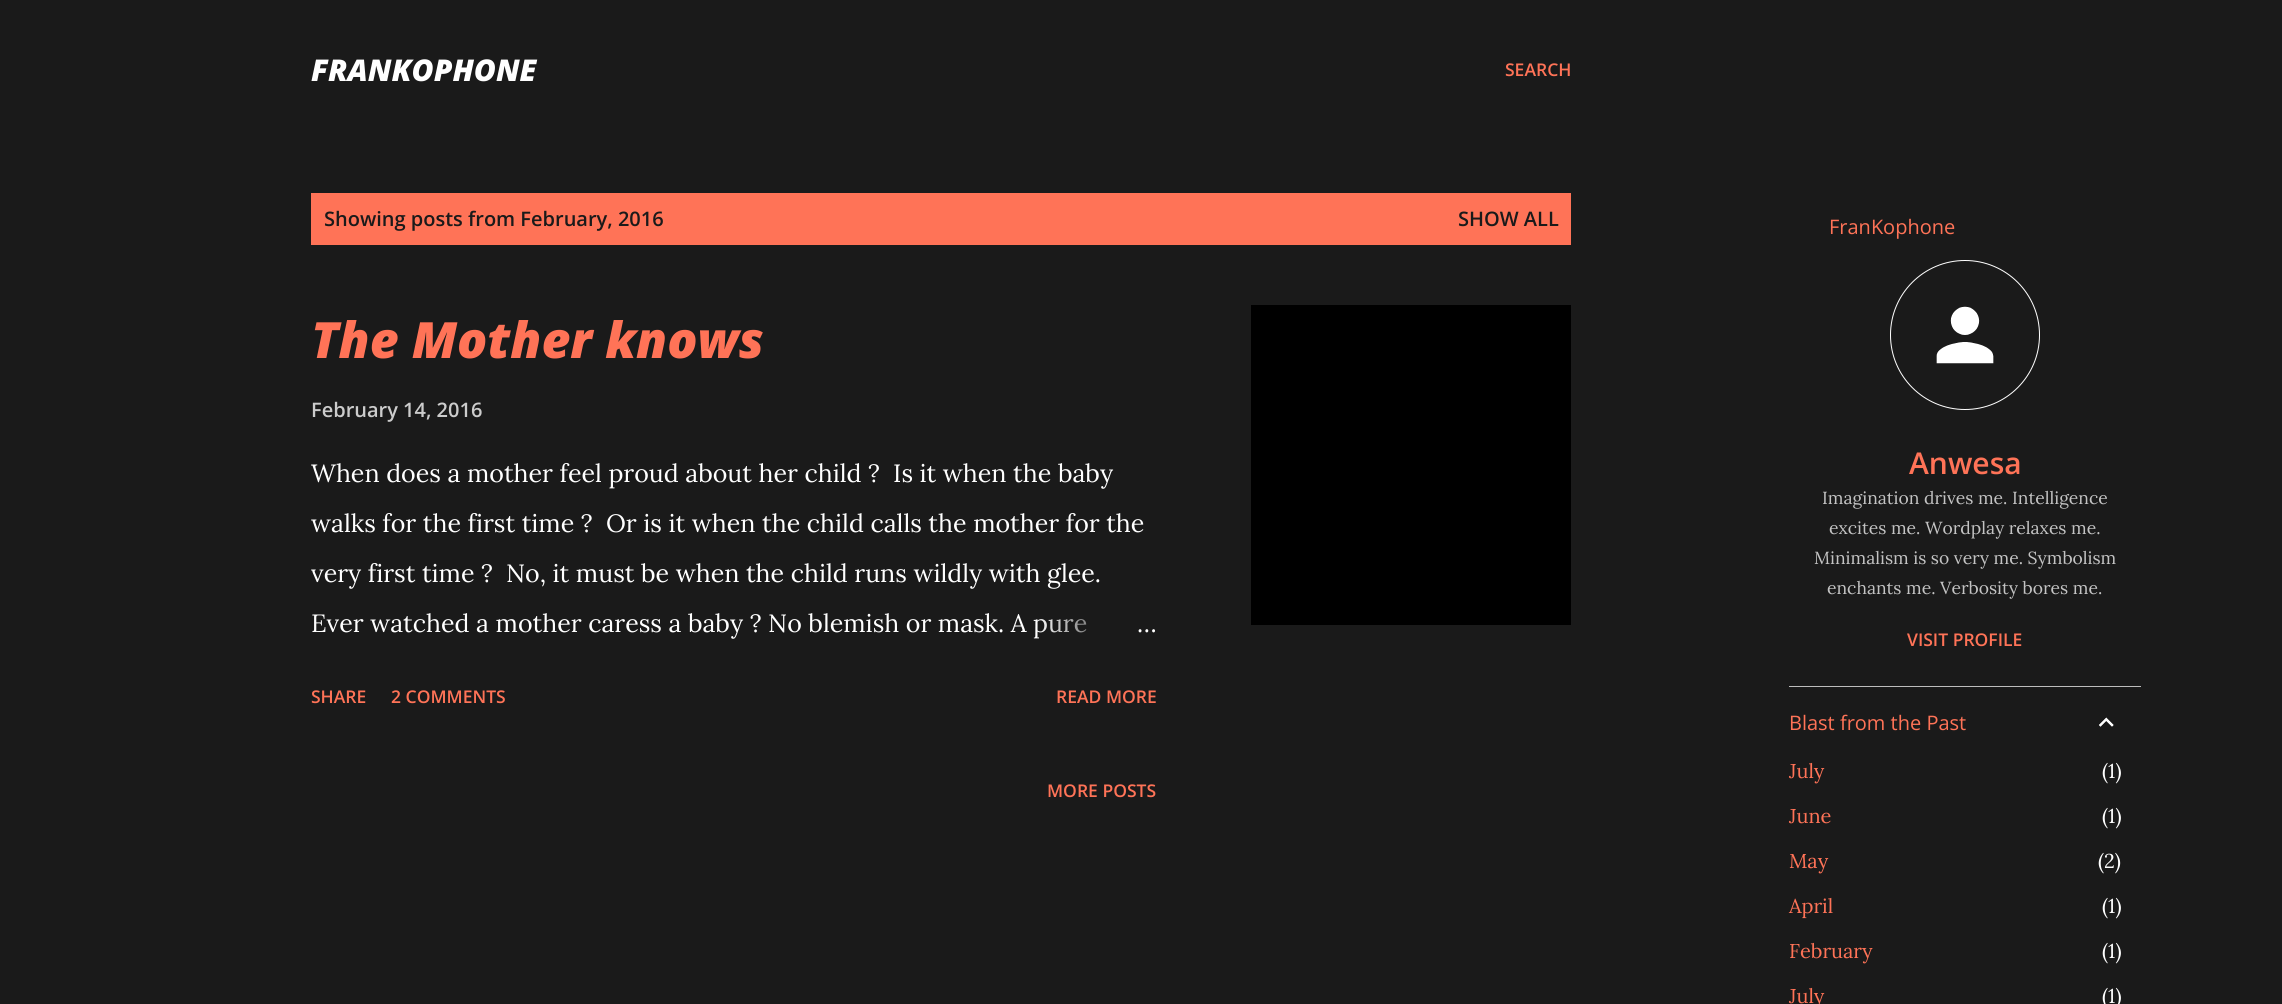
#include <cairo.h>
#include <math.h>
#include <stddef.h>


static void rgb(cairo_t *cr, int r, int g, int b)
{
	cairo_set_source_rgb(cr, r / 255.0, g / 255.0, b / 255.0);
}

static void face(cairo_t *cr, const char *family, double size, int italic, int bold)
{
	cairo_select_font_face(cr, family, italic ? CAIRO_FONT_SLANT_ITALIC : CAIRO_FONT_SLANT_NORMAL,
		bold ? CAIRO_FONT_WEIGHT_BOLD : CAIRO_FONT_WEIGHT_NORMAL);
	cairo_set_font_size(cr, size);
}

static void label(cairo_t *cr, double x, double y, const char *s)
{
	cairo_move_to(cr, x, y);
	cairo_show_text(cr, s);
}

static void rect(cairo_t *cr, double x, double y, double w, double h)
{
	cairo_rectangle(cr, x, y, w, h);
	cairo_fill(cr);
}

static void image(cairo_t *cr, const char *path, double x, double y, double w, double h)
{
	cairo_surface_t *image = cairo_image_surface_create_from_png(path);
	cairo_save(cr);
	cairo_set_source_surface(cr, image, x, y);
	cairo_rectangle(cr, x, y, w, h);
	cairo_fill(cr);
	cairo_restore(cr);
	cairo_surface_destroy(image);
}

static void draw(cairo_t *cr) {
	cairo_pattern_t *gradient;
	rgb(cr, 26, 26, 26);
	cairo_paint(cr);
	face(cr, "Open Sans ExtraBold", 30, 1, 0);
	rgb(cr, 255, 255, 255);
	label(cr, 311, 81, "FRANKOPHONE");
	face(cr, "Open Sans SemiBold", 17.5, 0, 0);
	rgb(cr, 255, 115, 87);
	label(cr, 1505, 76, "SEARCH");
	rect(cr, 311, 193, 1260, 52);
	face(cr, "Open Sans SemiBold", 20, 0, 0);
	rgb(cr, 26, 26, 26);
	label(cr, 324, 226, "Showing posts from February, 2016");
	label(cr, 1458, 226, "SHOW ALL");
	face(cr, "Open Sans ExtraBold", 50, 1, 0);
	rgb(cr, 255, 115, 87);
	label(cr, 311, 358, "The Mother knows");
	face(cr, "Open Sans SemiBold", 20, 0, 0);
	rgb(cr, 204, 204, 204);
	label(cr, 311, 417, "February 14, 2016");
	face(cr, "Lora", 25, 0, 0);
	rgb(cr, 255, 255, 255);
	label(cr, 311, 482, "When does a mother feel proud about her child ?");
	label(cr, 893, 482, "Is it when the baby");
	label(cr, 311, 532, "walks for the first time ?");
	label(cr, 606, 532, "Or is it when the child calls the mother for the");
	label(cr, 311, 582, "very first time ?");
	label(cr, 506, 582, "No, it must be when the child runs wildly with glee.");
	label(cr, 311, 632, "Ever watched a mother caress a baby ? No blemish or mask. A pure");
	gradient = cairo_pattern_create_linear(1156, 623, 1036, 623);
	cairo_pattern_add_color_stop_rgba(gradient, 0, 0.102, 0.102, 0.102, 1);
	cairo_pattern_add_color_stop_rgba(gradient, 0.2, 0.102, 0.102, 0.102, 1);
	cairo_pattern_add_color_stop_rgba(gradient, 1, 0.102, 0.102, 0.102, 0);
	cairo_set_source(cr, gradient);
	cairo_pattern_destroy(gradient);
	rect(cr, 1038, 619, 49, 19);
	rgb(cr, 255, 255, 255);
	label(cr, 1137, 632, "…");
	face(cr, "Open Sans SemiBold", 17.5, 0, 0);
	rgb(cr, 255, 115, 87);
	label(cr, 311, 703, "SHARE");
	label(cr, 391, 703, "2 COMMENTS");
	label(cr, 1056, 703, "READ MORE");
	rgb(cr, 0, 0, 0);
	rect(cr, 1251, 305, 320, 320);
	rgb(cr, 255, 115, 87);
	label(cr, 1047, 797, "MORE POSTS");
	face(cr, "Open Sans", 20, 0, 0);
	label(cr, 1829, 234, "FranKophone");
	cairo_new_path(cr);
	cairo_arc(cr, 1965, 335, 74.5, 0, 2 * M_PI);
	rgb(cr, 255, 255, 255);
	cairo_set_line_width(cr, 1);
	cairo_stroke(cr);
	image(cr, "image0.png", 1936, 306, 58, 58);
	face(cr, "Open Sans SemiBold", 30, 0, 0);
	rgb(cr, 255, 115, 87);
	label(cr, 1909, 474, "Anwesa");
	face(cr, "Lora", 17.5, 0, 0);
	rgb(cr, 195, 195, 195);
	label(cr, 1822, 504, "Imagination drives me. Intelligence");
	label(cr, 1829, 534, "excites me. Wordplay relaxes me.");
	label(cr, 1814, 564, "Minimalism is so very me. Symbolism");
	label(cr, 1827, 594, "enchants me. Verbosity bores me.");
	face(cr, "Open Sans SemiBold", 17.5, 0, 0);
	rgb(cr, 255, 115, 87);
	label(cr, 1907, 646, "VISIT PROFILE");
	rgb(cr, 189, 189, 189);
	rect(cr, 1789, 686, 352, 1);
	face(cr, "Open Sans", 20, 0, 0);
	rgb(cr, 255, 115, 87);
	label(cr, 1789, 730, "Blast from the Past");
	image(cr, "image1.png", 2099, 717, 15, 10);
	face(cr, "Lora", 20, 0, 0);
	label(cr, 1789, 778, "July");
	rgb(cr, 255, 255, 255);
	label(cr, 2102, 778, "(1)");
	rgb(cr, 255, 115, 87);
	label(cr, 1789, 823, "June");
	rgb(cr, 255, 255, 255);
	label(cr, 2102, 823, "(1)");
	rgb(cr, 255, 115, 87);
	label(cr, 1789, 868, "May");
	rgb(cr, 255, 255, 255);
	label(cr, 2098, 868, "(2)");
	rgb(cr, 255, 115, 87);
	label(cr, 1789, 913, "April");
	rgb(cr, 255, 255, 255);
	label(cr, 2102, 913, "(1)");
	rgb(cr, 255, 115, 87);
	label(cr, 1789, 958, "February");
	rgb(cr, 255, 255, 255);
	label(cr, 2102, 958, "(1)");
	rgb(cr, 255, 115, 87);
	label(cr, 1789, 1003, "July");
	rgb(cr, 255, 255, 255);
	label(cr, 2102, 1003, "(1)");
}

int main(void) {
	cairo_surface_t *surface = cairo_image_surface_create(CAIRO_FORMAT_RGB24, 2282, 1004);
	cairo_t *cr = cairo_create(surface);
	cairo_font_options_t *options = cairo_font_options_create();
	cairo_font_options_set_hint_metrics(options, CAIRO_HINT_METRICS_OFF);
	cairo_font_options_set_hint_style(options, CAIRO_HINT_STYLE_NONE);
	cairo_set_font_options(cr, options);
	cairo_set_miter_limit(cr, 4);
	draw(cr);
	cairo_surface_write_to_png(surface, "render.png");
	cairo_font_options_destroy(options);
	cairo_destroy(cr);
	cairo_surface_destroy(surface);
	return 0;
}
